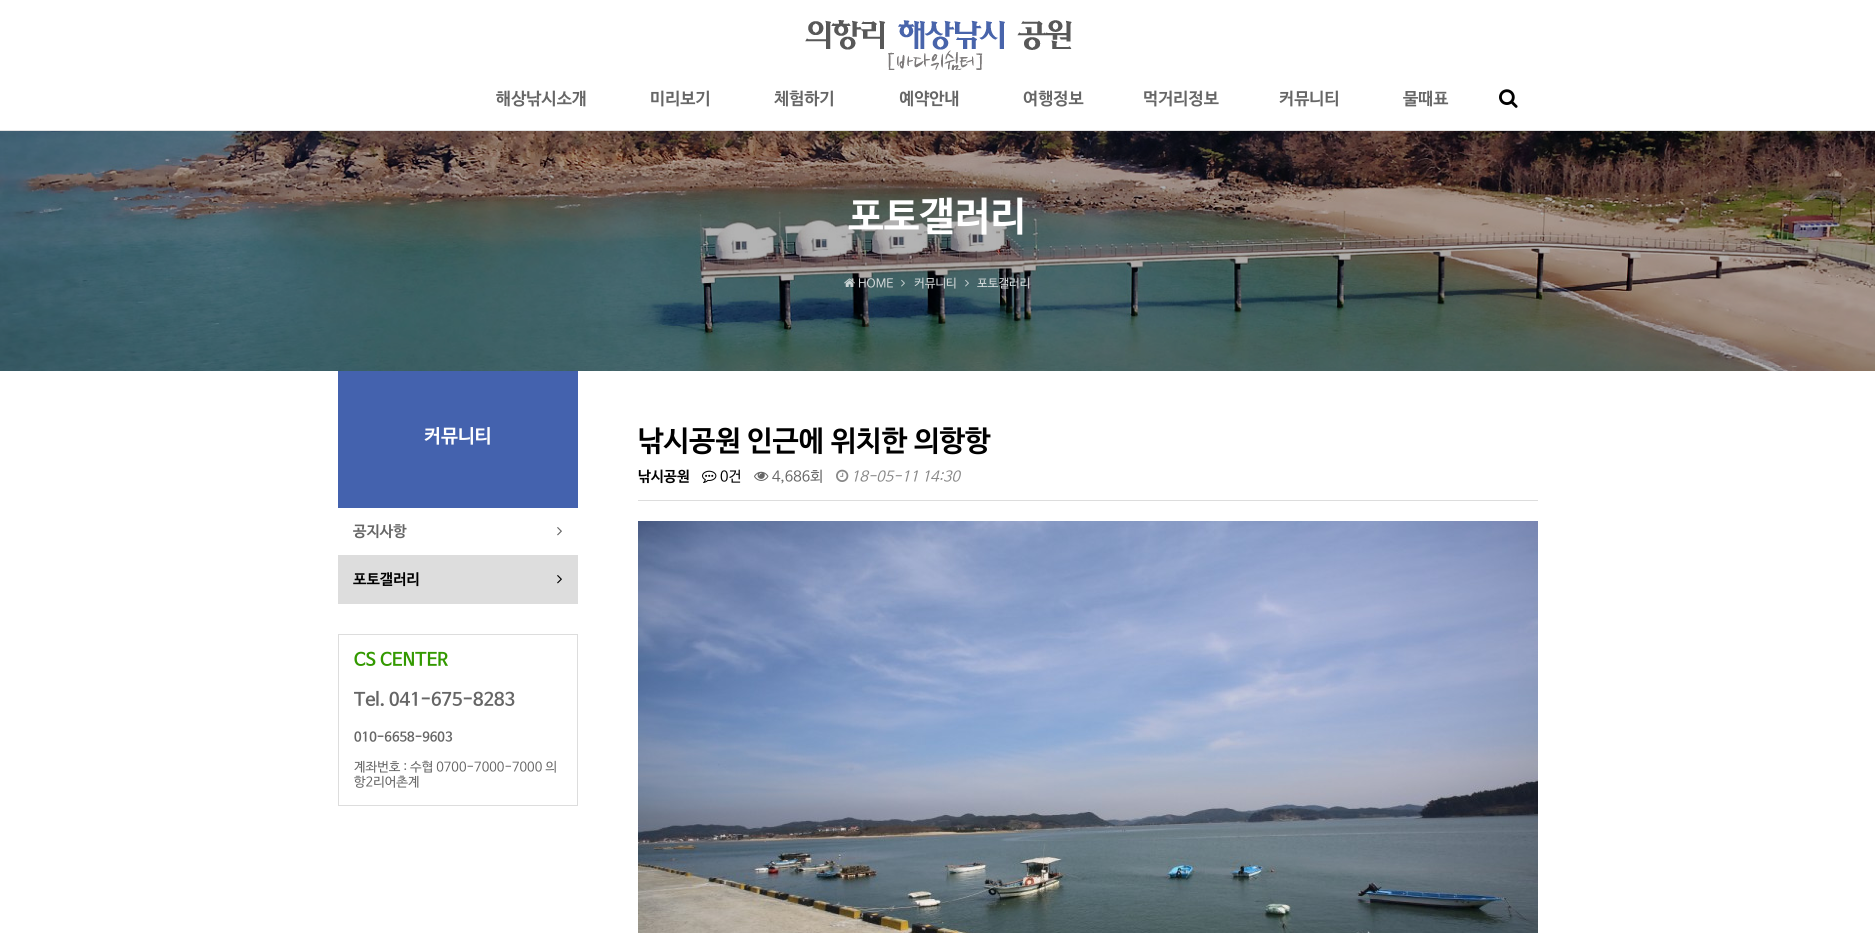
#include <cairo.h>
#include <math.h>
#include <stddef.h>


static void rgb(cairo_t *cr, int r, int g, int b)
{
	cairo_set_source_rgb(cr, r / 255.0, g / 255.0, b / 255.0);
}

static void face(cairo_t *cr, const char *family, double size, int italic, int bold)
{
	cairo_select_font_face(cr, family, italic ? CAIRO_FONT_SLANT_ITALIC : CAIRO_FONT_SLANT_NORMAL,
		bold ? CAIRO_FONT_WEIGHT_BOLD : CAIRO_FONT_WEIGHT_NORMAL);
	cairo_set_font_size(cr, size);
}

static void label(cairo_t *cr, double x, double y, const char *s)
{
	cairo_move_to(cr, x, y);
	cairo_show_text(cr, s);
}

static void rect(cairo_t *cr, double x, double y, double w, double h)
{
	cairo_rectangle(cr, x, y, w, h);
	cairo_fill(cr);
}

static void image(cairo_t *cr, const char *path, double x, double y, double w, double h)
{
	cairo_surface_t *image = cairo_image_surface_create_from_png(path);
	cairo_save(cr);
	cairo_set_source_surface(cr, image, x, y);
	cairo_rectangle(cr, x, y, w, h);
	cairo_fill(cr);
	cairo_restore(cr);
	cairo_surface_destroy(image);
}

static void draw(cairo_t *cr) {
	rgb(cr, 255, 255, 255);
	cairo_paint(cr);
	image(cr, "image0.png", 805, 20, 267, 50);
	rgb(cr, 226, 226, 226);
	rect(cr, 0, 130, 1875, 1);
	face(cr, "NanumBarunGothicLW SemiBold", 17, 0, 0);
	rgb(cr, 102, 102, 102);
	label(cr, 496, 104, "해상낚시소개");
	label(cr, 650, 104, "미리보기");
	label(cr, 774, 104, "체험하기");
	label(cr, 899, 104, "예약안내");
	label(cr, 1023, 104, "여행정보");
	label(cr, 1143, 104, "먹거리정보");
	label(cr, 1279, 104, "커뮤니티");
	label(cr, 1403, 104, "물때표");
	image(cr, "image1.png", 1499, 89, 19, 19);
	image(cr, "image2.png", 0, 131, 1875, 240);
	face(cr, "NanumBarunGothicLW SemiBold", 40, 0, 0);
	rgb(cr, 255, 255, 255);
	label(cr, 848, 229, "포토갤러리");
	image(cr, "image3.png", 844, 278, 11, 9);
	face(cr, "NanumBarunGothicLW", 12, 0, 0);
	rgb(cr, 215, 220, 221);
	label(cr, 858, 287, "HOME");
	image(cr, "image4.png", 901, 279, 4, 8);
	label(cr, 914, 287, "커뮤니티");
	image(cr, "image5.png", 965, 279, 4, 8);
	label(cr, 977, 287, "포토갤러리");
	rgb(cr, 68, 98, 174);
	rect(cr, 338, 371, 240, 137);
	face(cr, "NanumBarunGothicLW SemiBold", 19, 0, 0);
	rgb(cr, 255, 255, 255);
	label(cr, 424, 442, "커뮤니티");
	rgb(cr, 221, 221, 221);
	rect(cr, 338, 555, 240, 1);
	face(cr, "NanumBarunGothicLW SemiBold", 15, 0, 0);
	rgb(cr, 102, 102, 102);
	label(cr, 353, 536, "공지사항");
	image(cr, "image6.png", 557, 527, 5, 9);
	rgb(cr, 221, 221, 221);
	rect(cr, 338, 556, 240, 48);
	rgb(cr, 0, 0, 0);
	label(cr, 353, 584, "포토갤러리");
	image(cr, "image7.png", 557, 575, 5, 9);
	cairo_rectangle(cr, 338.5, 634.5, 239, 171);
	rgb(cr, 221, 221, 221);
	cairo_set_line_width(cr, 1);
	cairo_stroke(cr);
	face(cr, "NanumBarunGothicLW SemiBold", 18, 0, 0);
	rgb(cr, 51, 153, 0);
	label(cr, 354, 665, "CS CENTER");
	rgb(cr, 102, 102, 102);
	label(cr, 354, 705, "Tel. 041-675-8283");
	face(cr, "NanumBarunGothicLW SemiBold", 13, 0, 0);
	label(cr, 354, 741, "010-6658-9603");
	face(cr, "NanumBarunGothicLW", 13, 0, 0);
	label(cr, 354, 771, "계좌번호 : 수협 0700-7000-7000 의");
	label(cr, 354, 786, "항2리어촌계");
	face(cr, "NanumBarunGothicLW SemiBold", 28.75, 0, 0);
	rgb(cr, 0, 0, 0);
	label(cr, 638, 450, "낚시공원 인근에 위치한 의항항");
	rgb(cr, 221, 221, 221);
	rect(cr, 638, 500, 900, 1);
	face(cr, "NanumBarunGothicLW SemiBold", 14.5, 0, 0);
	rgb(cr, 0, 0, 0);
	label(cr, 638, 481, "낚시공원");
	image(cr, "image8.png", 702, 470, 15, 13);
	face(cr, "NanumBarunGothicLW", 14.5, 0, 0);
	label(cr, 720, 481, "0건");
	image(cr, "image9.png", 754, 471, 15, 10);
	rgb(cr, 102, 102, 102);
	label(cr, 772, 481, "4,686회");
	image(cr, "image10.png", 836, 469, 13, 13);
	face(cr, "NanumBarunGothicLW", 14.5, 1, 0);
	rgb(cr, 136, 136, 136);
	label(cr, 851, 481, "18-05-11 14:30");
	image(cr, "image11.png", 638, 521, 900, 412);
}

int main(void) {
	cairo_surface_t *surface = cairo_image_surface_create(CAIRO_FORMAT_RGB24, 1875, 933);
	cairo_t *cr = cairo_create(surface);
	cairo_font_options_t *options = cairo_font_options_create();
	cairo_font_options_set_hint_metrics(options, CAIRO_HINT_METRICS_OFF);
	cairo_font_options_set_hint_style(options, CAIRO_HINT_STYLE_NONE);
	cairo_set_font_options(cr, options);
	cairo_set_miter_limit(cr, 4);
	draw(cr);
	cairo_surface_write_to_png(surface, "render.png");
	cairo_font_options_destroy(options);
	cairo_destroy(cr);
	cairo_surface_destroy(surface);
	return 0;
}
